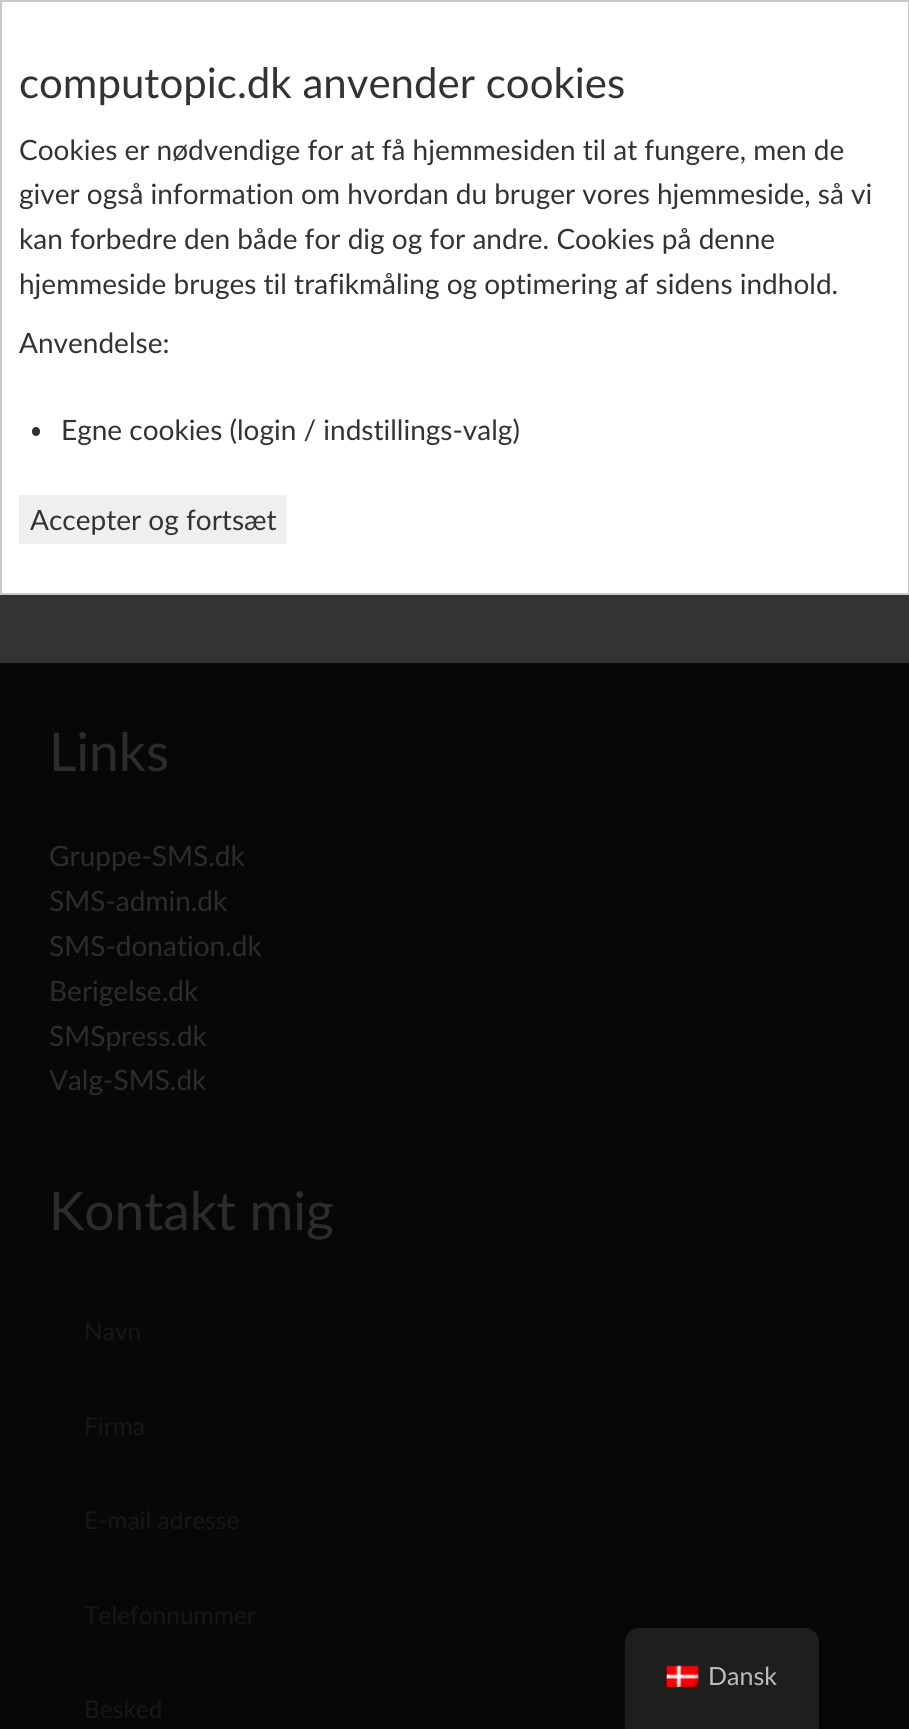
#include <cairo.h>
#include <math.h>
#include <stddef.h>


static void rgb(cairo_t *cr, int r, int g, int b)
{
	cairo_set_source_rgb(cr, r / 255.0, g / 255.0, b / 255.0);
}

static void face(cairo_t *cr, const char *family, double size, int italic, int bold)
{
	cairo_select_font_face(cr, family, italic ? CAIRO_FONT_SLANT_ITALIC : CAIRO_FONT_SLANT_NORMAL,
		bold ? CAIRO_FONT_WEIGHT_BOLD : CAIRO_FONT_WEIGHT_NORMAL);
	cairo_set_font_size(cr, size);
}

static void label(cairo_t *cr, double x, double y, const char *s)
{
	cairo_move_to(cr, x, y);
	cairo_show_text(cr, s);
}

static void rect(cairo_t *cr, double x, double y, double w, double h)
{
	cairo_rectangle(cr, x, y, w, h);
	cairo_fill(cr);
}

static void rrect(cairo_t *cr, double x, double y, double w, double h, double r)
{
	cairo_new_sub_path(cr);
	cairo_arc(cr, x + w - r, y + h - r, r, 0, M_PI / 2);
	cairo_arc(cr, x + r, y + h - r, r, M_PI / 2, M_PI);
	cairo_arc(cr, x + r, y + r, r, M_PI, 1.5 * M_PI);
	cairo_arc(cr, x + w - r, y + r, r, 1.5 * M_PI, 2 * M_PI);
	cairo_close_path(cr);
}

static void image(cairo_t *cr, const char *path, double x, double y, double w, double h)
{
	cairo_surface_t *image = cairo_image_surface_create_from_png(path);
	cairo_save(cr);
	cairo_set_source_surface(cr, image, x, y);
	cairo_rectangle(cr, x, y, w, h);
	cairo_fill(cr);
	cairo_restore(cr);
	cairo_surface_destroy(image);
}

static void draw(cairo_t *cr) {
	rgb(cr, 51, 51, 51);
	cairo_paint(cr);
	rgb(cr, 255, 255, 255);
	cairo_rectangle(cr, 1, 1, 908, 593);
	cairo_fill_preserve(cr);
	rgb(cr, 200, 200, 200);
	cairo_stroke(cr);
	face(cr, "Lato", 42, 0, 0);
	rgb(cr, 51, 51, 51);
	label(cr, 19, 98, "computopic.dk anvender cookies");
	face(cr, "Lato", 28, 0, 0);
	label(cr, 19, 160, "Cookies er nødvendige for at få hjemmesiden til at fungere, men de");
	label(cr, 19, 204, "giver også information om hvordan du bruger vores hjemmeside, så vi");
	label(cr, 19, 249, "kan forbedre den både for dig og for andre. Cookies på denne");
	label(cr, 19, 294, "hjemmeside bruges til trafikmåling og optimering af sidens indhold.");
	label(cr, 19, 353, "Anvendelse:");
	rrect(cr, 32, 427, 8, 9, 4);
	cairo_fill(cr);
	label(cr, 61, 440, "Egne cookies (login / indstillings-valg)");
	rgb(cr, 239, 239, 239);
	rect(cr, 19, 495, 268, 49);
	rgb(cr, 51, 51, 51);
	label(cr, 30, 530, "Accepter og fortsæt");
	rgb(cr, 7, 7, 8);
	rect(cr, 0, 663, 909, 1066);
	face(cr, "Lato", 53.25, 0, 0);
	rgb(cr, 44, 44, 44);
	label(cr, 49, 771, "Links");
	face(cr, "Lato", 28, 0, 0);
	label(cr, 49, 866, "Gruppe-SMS.dk");
	label(cr, 49, 911, "SMS-admin.dk");
	label(cr, 49, 956, "SMS-donation.dk");
	label(cr, 49, 1001, "Berigelse.dk");
	label(cr, 49, 1046, "SMSpress.dk");
	label(cr, 49, 1090, "Valg-SMS.dk");
	face(cr, "Lato", 53.25, 0, 0);
	label(cr, 49, 1230, "Kontakt mig");
	face(cr, "Lato", 24.5, 0, 0);
	rgb(cr, 23, 23, 23);
	label(cr, 84, 1340, "Navn");
	label(cr, 84, 1435, "Firma");
	label(cr, 84, 1529, "E-mail adresse");
	label(cr, 84, 1624, "Telefonnummer");
	label(cr, 84, 1718, "Besked");
	rgb(cr, 30, 30, 30);
	cairo_new_path(cr);
	cairo_move_to(cr, 639, 1628);
	cairo_line_to(cr, 805, 1628);
	cairo_curve_to(cr, 812.5, 1628, 819, 1634.5, 819, 1642);
	cairo_line_to(cr, 819, 1729);
	cairo_line_to(cr, 625, 1729);
	cairo_line_to(cr, 625, 1642);
	cairo_curve_to(cr, 625, 1634.5, 631.5, 1628, 639, 1628);
	cairo_close_path(cr);
	cairo_fill(cr);
	image(cr, "image0.png", 666, 1665, 33, 22);
	face(cr, "Lato", 25, 0, 0);
	rgb(cr, 189, 189, 189);
	label(cr, 708, 1685, "Dansk");
}

int main(void) {
	cairo_surface_t *surface = cairo_image_surface_create(CAIRO_FORMAT_RGB24, 909, 1729);
	cairo_t *cr = cairo_create(surface);
	cairo_font_options_t *options = cairo_font_options_create();
	cairo_font_options_set_hint_metrics(options, CAIRO_HINT_METRICS_OFF);
	cairo_font_options_set_hint_style(options, CAIRO_HINT_STYLE_NONE);
	cairo_set_font_options(cr, options);
	cairo_set_miter_limit(cr, 4);
	draw(cr);
	cairo_surface_write_to_png(surface, "render.png");
	cairo_font_options_destroy(options);
	cairo_destroy(cr);
	cairo_surface_destroy(surface);
	return 0;
}
